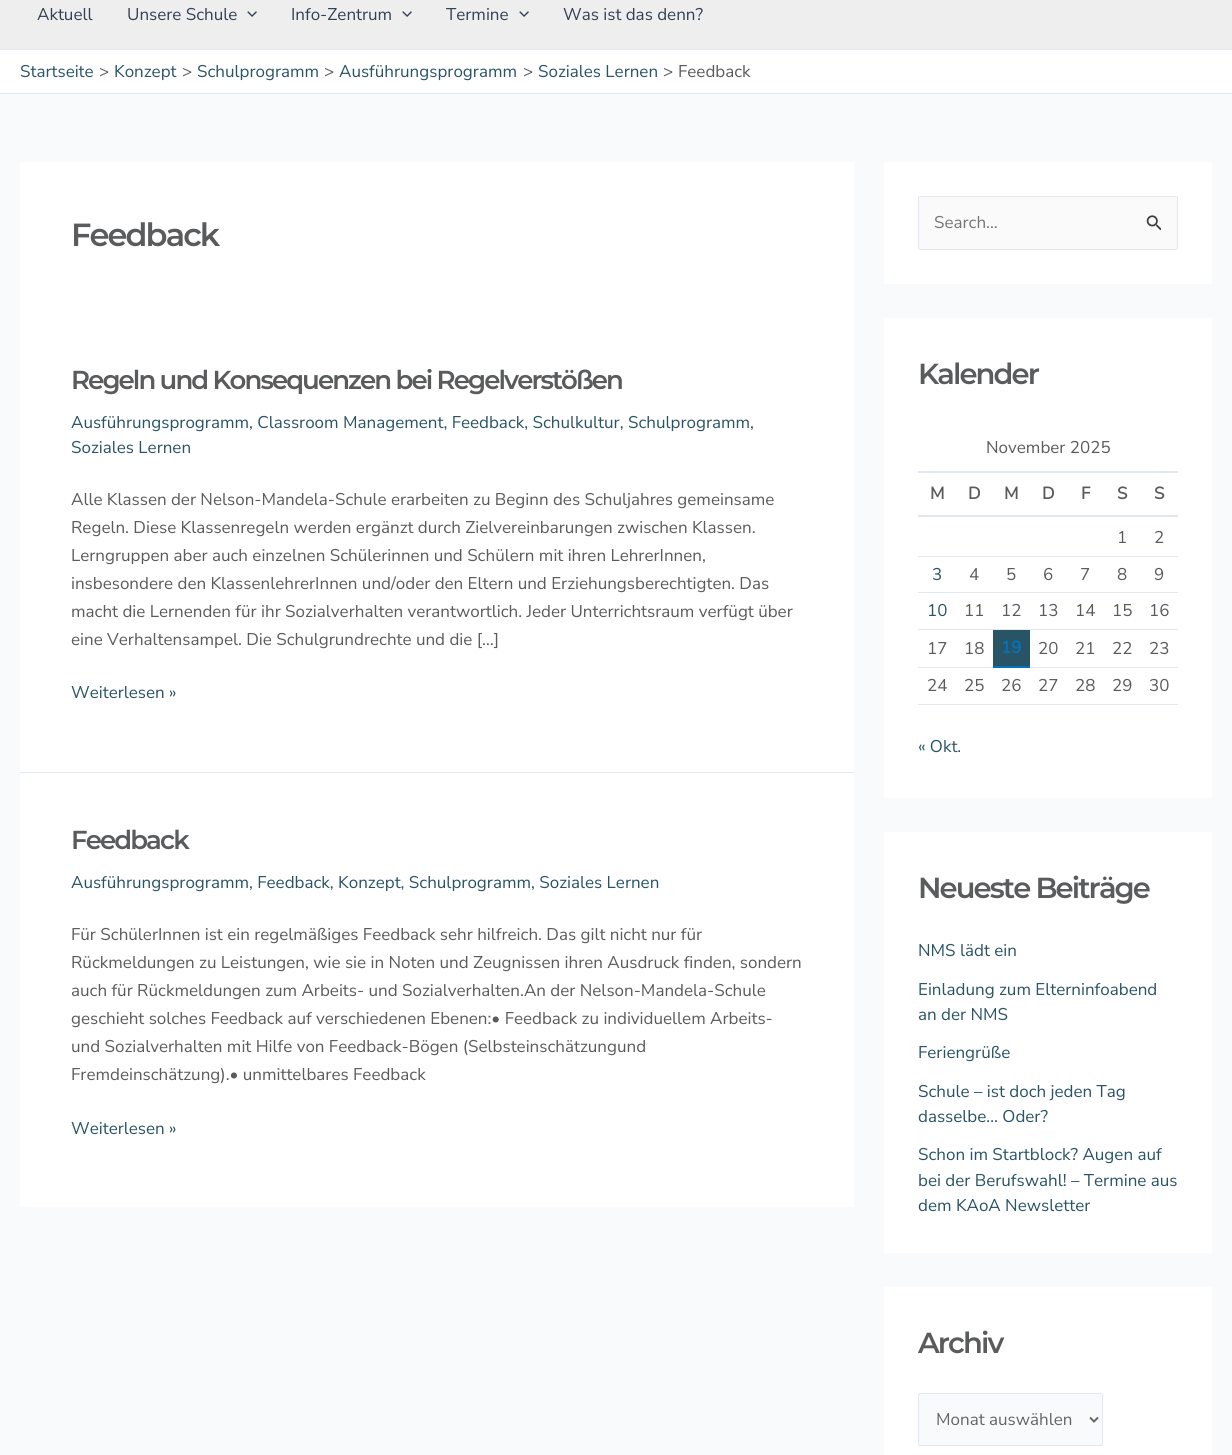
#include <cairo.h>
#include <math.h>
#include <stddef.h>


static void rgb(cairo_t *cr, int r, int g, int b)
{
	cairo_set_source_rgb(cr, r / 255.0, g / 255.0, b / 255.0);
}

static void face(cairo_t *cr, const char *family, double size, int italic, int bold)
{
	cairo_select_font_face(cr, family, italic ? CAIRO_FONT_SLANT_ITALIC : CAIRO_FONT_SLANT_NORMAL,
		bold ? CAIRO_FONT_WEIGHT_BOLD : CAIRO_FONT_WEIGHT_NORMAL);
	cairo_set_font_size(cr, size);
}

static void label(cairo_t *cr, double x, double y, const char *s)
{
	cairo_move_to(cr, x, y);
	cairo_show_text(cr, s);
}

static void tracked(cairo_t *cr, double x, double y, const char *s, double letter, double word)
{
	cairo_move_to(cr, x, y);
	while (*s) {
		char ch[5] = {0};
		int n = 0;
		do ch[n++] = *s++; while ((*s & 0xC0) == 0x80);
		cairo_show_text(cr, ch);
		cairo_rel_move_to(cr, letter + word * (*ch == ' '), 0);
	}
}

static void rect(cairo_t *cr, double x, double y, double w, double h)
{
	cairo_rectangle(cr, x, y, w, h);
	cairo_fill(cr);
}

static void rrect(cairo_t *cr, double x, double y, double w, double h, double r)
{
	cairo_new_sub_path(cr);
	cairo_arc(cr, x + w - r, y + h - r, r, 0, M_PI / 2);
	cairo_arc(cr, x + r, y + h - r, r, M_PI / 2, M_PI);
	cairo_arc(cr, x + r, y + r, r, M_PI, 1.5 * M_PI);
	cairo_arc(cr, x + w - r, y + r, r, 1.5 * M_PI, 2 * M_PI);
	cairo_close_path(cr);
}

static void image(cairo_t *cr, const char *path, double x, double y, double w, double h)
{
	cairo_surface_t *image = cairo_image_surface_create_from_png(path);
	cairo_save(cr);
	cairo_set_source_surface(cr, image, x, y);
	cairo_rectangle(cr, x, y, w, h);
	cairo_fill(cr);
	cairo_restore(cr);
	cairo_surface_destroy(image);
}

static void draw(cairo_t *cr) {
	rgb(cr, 249, 250, 251);
	cairo_paint(cr);
	rgb(cr, 238, 238, 238);
	rect(cr, 0, 0, 1232, 49);
	rgb(cr, 226, 232, 240);
	rect(cr, 0, 49, 1232, 1);
	face(cr, "Nunito Sans ExtraLight", 17, 0, 0);
	rgb(cr, 51, 65, 85);
	label(cr, 37, 20, "Aktuell");
	label(cr, 127, 20, "Unsere Schule");
	image(cr, "image0.png", 247, 11, 10, 6);
	label(cr, 291, 20, "Info-Zentrum");
	image(cr, "image0.png", 402, 11, 10, 6);
	label(cr, 446, 20, "Termine");
	image(cr, "image0.png", 519, 11, 10, 6);
	label(cr, 563, 20, "Was ist das denn?");
	rgb(cr, 255, 255, 255);
	rect(cr, 0, 50, 1232, 43);
	rgb(cr, 226, 232, 240);
	rect(cr, 0, 93, 1232, 1);
	rgb(cr, 41, 84, 102);
	label(cr, 20, 77, "Startseite");
	rgb(cr, 90, 91, 93);
	label(cr, 99, 77, ">");
	rgb(cr, 41, 84, 102);
	label(cr, 114, 77, "Konzept");
	rgb(cr, 90, 91, 93);
	label(cr, 182, 77, ">");
	rgb(cr, 41, 84, 102);
	label(cr, 197, 77, "Schulprogramm");
	rgb(cr, 90, 91, 93);
	label(cr, 324, 77, ">");
	rgb(cr, 41, 84, 102);
	label(cr, 339, 77, "Ausführungsprogramm");
	rgb(cr, 90, 91, 93);
	label(cr, 523, 77, ">");
	rgb(cr, 41, 84, 102);
	label(cr, 538, 77, "Soziales Lernen");
	rgb(cr, 90, 91, 93);
	label(cr, 663, 77, ">");
	label(cr, 678, 77, "Feedback");
	rgb(cr, 255, 255, 255);
	rect(cr, 20, 162, 834, 610);
	face(cr, "Montserrat SemiBold", 32, 0, 0);
	rgb(cr, 90, 91, 93);
	tracked(cr, 71, 246, "Feedback", -1.9, 0);
	rgb(cr, 226, 232, 240);
	rect(cr, 20, 772, 834, 1);
	face(cr, "Montserrat SemiBold", 26, 0, 0);
	rgb(cr, 90, 91, 93);
	tracked(cr, 71, 389, "Regeln und Konsequenzen bei Regelverstößen", -1.9, 0);
	face(cr, "Nunito Sans ExtraLight", 17, 0, 0);
	rgb(cr, 41, 84, 102);
	label(cr, 71, 428, "Ausführungsprogramm, Classroom Management, Feedback, Schulkultur, Schulprogramm,");
	label(cr, 71, 453, "Soziales Lernen");
	rgb(cr, 90, 91, 93);
	label(cr, 71, 505, "Alle Klassen der Nelson-Mandela-Schule erarbeiten zu Beginn des Schuljahres gemeinsame");
	label(cr, 71, 533, "Regeln. Diese Klassenregeln werden ergänzt durch Zielvereinbarungen zwischen Klassen.");
	label(cr, 71, 561, "Lerngruppen aber auch einzelnen Schülerinnen und Schülern mit ihren LehrerInnen,");
	label(cr, 71, 589, "insbesondere den KlassenlehrerInnen und/oder den Eltern und Erziehungsberechtigten. Das");
	label(cr, 71, 617, "macht die Lernenden für ihr Sozialverhalten verantwortlich. Jeder Unterrichtsraum verfügt über");
	label(cr, 71, 645, "eine Verhaltensampel. Die Schulgrundrechte und die […]");
	rgb(cr, 41, 84, 102);
	label(cr, 71, 698, "Weiterlesen »");
	rgb(cr, 255, 255, 255);
	rect(cr, 20, 773, 834, 434);
	face(cr, "Montserrat SemiBold", 26, 0, 0);
	rgb(cr, 90, 91, 93);
	tracked(cr, 71, 849, "Feedback", -1.9, 0);
	face(cr, "Nunito Sans ExtraLight", 17, 0, 0);
	rgb(cr, 41, 84, 102);
	label(cr, 71, 888, "Ausführungsprogramm, Feedback, Konzept, Schulprogramm, Soziales Lernen");
	rgb(cr, 90, 91, 93);
	label(cr, 71, 940, "Für SchülerInnen ist ein regelmäßiges Feedback sehr hilfreich. Das gilt nicht nur für");
	label(cr, 71, 968, "Rückmeldungen zu Leistungen, wie sie in Noten und Zeugnissen ihren Ausdruck finden, sondern");
	label(cr, 71, 996, "auch für Rückmeldungen zum Arbeits- und Sozialverhalten.An der Nelson-Mandela-Schule");
	label(cr, 71, 1024, "geschieht solches Feedback auf verschiedenen Ebenen:• Feedback zu individuellem Arbeits-");
	label(cr, 71, 1052, "und Sozialverhalten mit Hilfe von Feedback-Bögen (Selbsteinschätzungund");
	label(cr, 71, 1080, "Fremdeinschätzung).• unmittelbares Feedback");
	rgb(cr, 41, 84, 102);
	label(cr, 71, 1134, "Weiterlesen »");
	rgb(cr, 255, 255, 255);
	rect(cr, 884, 162, 328, 122);
	rgb(cr, 250, 250, 250);
	rrect(cr, 918.5, 196.5, 259, 53, 1.5);
	cairo_fill_preserve(cr);
	rgb(cr, 226, 232, 240);
	cairo_set_line_width(cr, 1);
	cairo_stroke(cr);
	rgb(cr, 117, 117, 117);
	label(cr, 934, 228, "Search...");
	image(cr, "image1.png", 1146, 215, 15, 16);
	rgb(cr, 255, 255, 255);
	rect(cr, 884, 318, 328, 480);
	face(cr, "Montserrat SemiBold", 29, 0, 0);
	rgb(cr, 90, 91, 93);
	tracked(cr, 918, 384, "Kalender", -1.9, 0);
	face(cr, "Nunito Sans ExtraLight", 17, 0, 0);
	label(cr, 986, 453, "November 2025");
	rgb(cr, 226, 232, 240);
	rect(cr, 918, 471, 260, 2);
	rect(cr, 918, 515, 260, 2);
	face(cr, "Nunito Sans", 17, 0, 1);
	rgb(cr, 90, 91, 93);
	label(cr, 930, 499, "M");
	label(cr, 968, 499, "D");
	label(cr, 1004, 499, "M");
	label(cr, 1042, 499, "D");
	label(cr, 1081, 499, "F");
	label(cr, 1117, 499, "S");
	label(cr, 1154, 499, "S");
	face(cr, "Nunito Sans ExtraLight", 17, 0, 0);
	label(cr, 1117, 543, "1");
	label(cr, 1154, 543, "2");
	rgb(cr, 226, 232, 240);
	rect(cr, 918, 556, 260, 1);
	rect(cr, 918, 592, 260, 1);
	rgb(cr, 41, 84, 102);
	label(cr, 932, 580, "3");
	rgb(cr, 90, 91, 93);
	label(cr, 969, 580, "4");
	label(cr, 1006, 580, "5");
	label(cr, 1043, 580, "6");
	label(cr, 1080, 580, "7");
	label(cr, 1117, 580, "8");
	label(cr, 1154, 580, "9");
	rgb(cr, 226, 232, 240);
	rect(cr, 918, 629, 260, 1);
	rgb(cr, 41, 84, 102);
	label(cr, 927, 616, "10");
	rgb(cr, 90, 91, 93);
	label(cr, 964, 616, "11");
	label(cr, 1001, 616, "12");
	label(cr, 1038, 616, "13");
	label(cr, 1075, 616, "14");
	label(cr, 1112, 616, "15");
	label(cr, 1149, 616, "16");
	rgb(cr, 226, 232, 240);
	rect(cr, 918, 667, 75, 1);
	rgb(cr, 90, 91, 93);
	label(cr, 927, 654, "17");
	label(cr, 964, 654, "18");
	rgb(cr, 41, 84, 102);
	rect(cr, 993, 630, 37, 36);
	rgb(cr, 2, 116, 190);
	rect(cr, 993, 666, 37, 2);
	face(cr, "Nunito Sans", 17, 0, 1);
	label(cr, 1001, 653, "19");
	rgb(cr, 226, 232, 240);
	rect(cr, 1030, 667, 148, 1);
	face(cr, "Nunito Sans ExtraLight", 17, 0, 0);
	rgb(cr, 90, 91, 93);
	label(cr, 1038, 654, "20");
	label(cr, 1075, 654, "21");
	label(cr, 1112, 654, "22");
	label(cr, 1149, 654, "23");
	rgb(cr, 226, 232, 240);
	rect(cr, 918, 704, 260, 1);
	rgb(cr, 90, 91, 93);
	label(cr, 927, 691, "24");
	label(cr, 964, 691, "25");
	label(cr, 1001, 691, "26");
	label(cr, 1038, 691, "27");
	label(cr, 1075, 691, "28");
	label(cr, 1112, 691, "29");
	label(cr, 1149, 691, "30");
	rgb(cr, 41, 84, 102);
	label(cr, 918, 752, "« Okt.");
	rgb(cr, 255, 255, 255);
	rect(cr, 884, 832, 328, 421);
	face(cr, "Montserrat SemiBold", 29, 0, 0);
	rgb(cr, 90, 91, 93);
	tracked(cr, 918, 898, "Neueste Beiträge", -1.9, 0);
	face(cr, "Nunito Sans ExtraLight", 17, 0, 0);
	rgb(cr, 41, 84, 102);
	label(cr, 918, 956, "NMS lädt ein");
	label(cr, 918, 995, "Einladung zum Elterninfoabend");
	label(cr, 918, 1020, "an der NMS");
	label(cr, 918, 1058, "Feriengrüße");
	label(cr, 918, 1097, "Schule – ist doch jeden Tag");
	label(cr, 918, 1122, "dasselbe… Oder?");
	label(cr, 918, 1160, "Schon im Startblock? Augen auf");
	label(cr, 918, 1186, "bei der Berufswahl! – Termine aus");
	label(cr, 918, 1211, "dem KAoA Newsletter");
	rgb(cr, 255, 255, 255);
	rect(cr, 884, 1287, 328, 168);
	face(cr, "Montserrat SemiBold", 29, 0, 0);
	rgb(cr, 90, 91, 93);
	tracked(cr, 918, 1353, "Archiv", -1.9, 0);
	rgb(cr, 249, 250, 251);
	rrect(cr, 918.5, 1393.5, 184, 52, 1.5);
	cairo_fill_preserve(cr);
	rgb(cr, 226, 232, 240);
	cairo_stroke(cr);
	cairo_new_path(cr);
	cairo_move_to(cr, 1090, 1417.5);
	cairo_line_to(cr, 1094, 1421.5);
	cairo_line_to(cr, 1098, 1417.5);
	rgb(cr, 102, 102, 102);
	cairo_set_line_width(cr, 2);
	cairo_stroke(cr);
	face(cr, "Nunito Sans ExtraLight", 17, 0, 0);
	label(cr, 936, 1425, "Monat auswählen");
}

int main(void) {
	cairo_surface_t *surface = cairo_image_surface_create(CAIRO_FORMAT_RGB24, 1232, 1455);
	cairo_t *cr = cairo_create(surface);
	cairo_font_options_t *options = cairo_font_options_create();
	cairo_font_options_set_hint_metrics(options, CAIRO_HINT_METRICS_OFF);
	cairo_font_options_set_hint_style(options, CAIRO_HINT_STYLE_NONE);
	cairo_set_font_options(cr, options);
	cairo_set_miter_limit(cr, 4);
	draw(cr);
	cairo_surface_write_to_png(surface, "render.png");
	cairo_font_options_destroy(options);
	cairo_destroy(cr);
	cairo_surface_destroy(surface);
	return 0;
}
